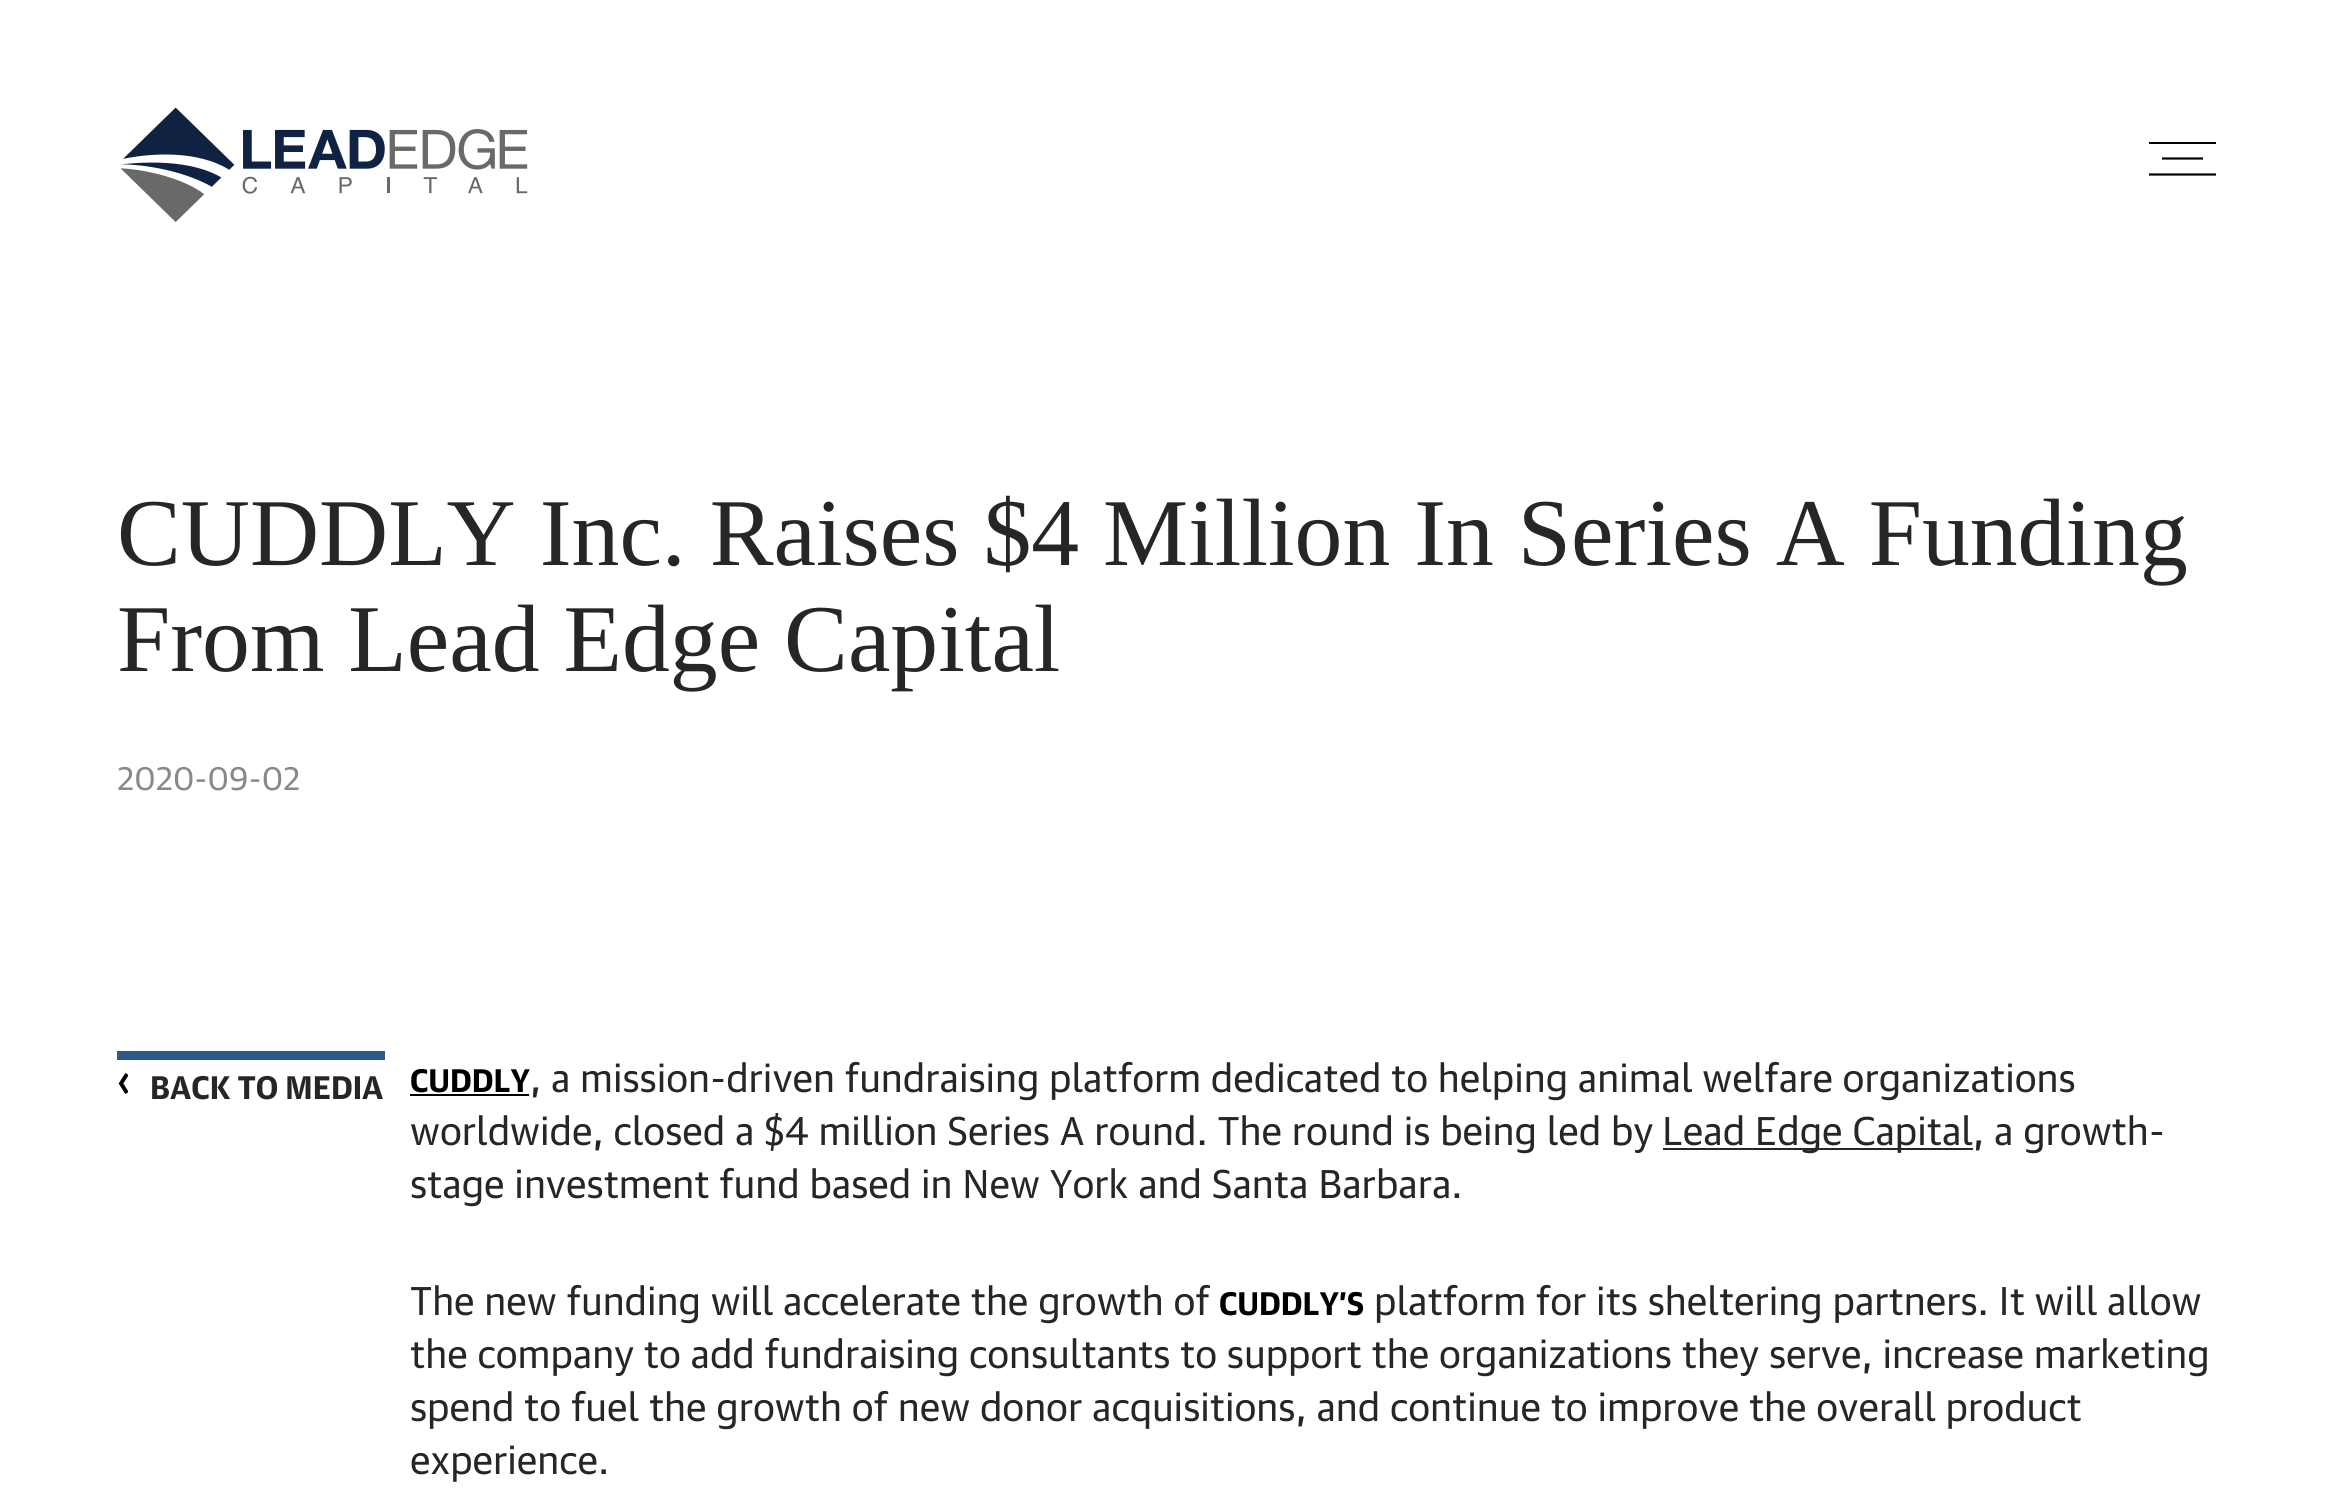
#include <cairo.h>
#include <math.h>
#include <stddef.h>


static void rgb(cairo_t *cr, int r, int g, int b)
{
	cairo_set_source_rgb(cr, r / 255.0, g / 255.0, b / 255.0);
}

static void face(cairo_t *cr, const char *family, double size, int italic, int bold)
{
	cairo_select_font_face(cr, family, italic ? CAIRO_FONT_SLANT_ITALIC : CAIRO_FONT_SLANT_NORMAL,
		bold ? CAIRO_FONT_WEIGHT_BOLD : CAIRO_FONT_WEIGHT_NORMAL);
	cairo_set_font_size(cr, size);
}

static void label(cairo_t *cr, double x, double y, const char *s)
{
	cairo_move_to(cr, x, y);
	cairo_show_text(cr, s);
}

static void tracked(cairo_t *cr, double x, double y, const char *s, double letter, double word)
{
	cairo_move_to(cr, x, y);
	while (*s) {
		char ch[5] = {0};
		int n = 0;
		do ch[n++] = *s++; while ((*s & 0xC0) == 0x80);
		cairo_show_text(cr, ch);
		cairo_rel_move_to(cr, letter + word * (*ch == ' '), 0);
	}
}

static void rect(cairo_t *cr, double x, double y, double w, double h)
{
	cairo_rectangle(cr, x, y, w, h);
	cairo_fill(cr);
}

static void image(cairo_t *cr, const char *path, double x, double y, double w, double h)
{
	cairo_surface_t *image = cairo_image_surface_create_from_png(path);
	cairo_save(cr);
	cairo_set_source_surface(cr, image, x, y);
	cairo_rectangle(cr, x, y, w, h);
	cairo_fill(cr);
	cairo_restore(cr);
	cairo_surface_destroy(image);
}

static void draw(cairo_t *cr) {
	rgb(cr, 255, 255, 255);
	cairo_paint(cr);
	image(cr, "image0.png", 120, 107, 408, 115);
	rgb(cr, 0, 0, 0);
	rect(cr, 2149, 142, 67, 2);
	cairo_new_path(cr);
	cairo_move_to(cr, 2162, 158.5);
	cairo_line_to(cr, 2203, 158.5);
	cairo_set_line_width(cr, 2.2);
	cairo_stroke(cr);
	cairo_new_path(cr);
	cairo_move_to(cr, 2149, 174.5);
	cairo_line_to(cr, 2216, 174.5);
	cairo_stroke(cr);
	face(cr, "Liberation Serif", 95.7, 0, 0);
	rgb(cr, 38, 38, 38);
	label(cr, 117, 565, "CUDDLY Inc. Raises $4 Million In Series A Funding");
	label(cr, 117, 671, "From Lead Edge Capital");
	face(cr, "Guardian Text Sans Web", 31.5, 0, 0);
	rgb(cr, 136, 136, 136);
	label(cr, 117, 790, "2020-09-02");
	rgb(cr, 45, 89, 138);
	rect(cr, 117, 1051, 268, 9);
	cairo_save(cr);
	cairo_rectangle(cr, 117, 1071, 11, 25);
	cairo_clip(cr);
	cairo_new_path(cr);
	cairo_move_to(cr, 127, 1074);
	cairo_line_to(cr, 121, 1083.5);
	cairo_line_to(cr, 127, 1093);
	rgb(cr, 0, 0, 0);
	cairo_set_line_width(cr, 3.9);
	cairo_stroke(cr);
	cairo_restore(cr);
	face(cr, "Guardian Text Sans Web", 31.5, 0, 1);
	rgb(cr, 38, 38, 38);
	label(cr, 150, 1099, "BACK TO MEDIA");
	rgb(cr, 0, 0, 0);
	label(cr, 410, 1092, "CUDDLY");
	rect(cr, 410, 1094, 119, 2);
	face(cr, "Guardian Text Sans Web", 38.75, 0, 0);
	rgb(cr, 38, 38, 38);
	tracked(cr, 530, 1092, ", a mission-driven fundraising platform dedicated to helping animal welfare organizations", 0, -0.1);
	label(cr, 410, 1145, "worldwide, closed a $4 million Series A round. The round is being led by");
	rect(cr, 1663, 1148, 310, 2);
	label(cr, 1662, 1145, "Lead Edge Capital, a growth-");
	label(cr, 410, 1198, "stage investment fund based in New York and Santa Barbara.");
	label(cr, 410, 1315, "The new funding will accelerate the growth of");
	face(cr, "Guardian Text Sans Web", 31.5, 0, 1);
	rgb(cr, 0, 0, 0);
	label(cr, 1219, 1315, "CUDDLY’S");
	face(cr, "Guardian Text Sans Web", 38.75, 0, 0);
	rgb(cr, 38, 38, 38);
	label(cr, 1374, 1315, "platform for its sheltering partners. It will allow");
	label(cr, 410, 1368, "the company to add fundraising consultants to support the organizations they serve, increase marketing");
	label(cr, 410, 1421, "spend to fuel the growth of new donor acquisitions, and continue to improve the overall product");
	label(cr, 410, 1474, "experience.");
}

int main(void) {
	cairo_surface_t *surface = cairo_image_surface_create(CAIRO_FORMAT_RGB24, 2333, 1497);
	cairo_t *cr = cairo_create(surface);
	cairo_font_options_t *options = cairo_font_options_create();
	cairo_font_options_set_hint_metrics(options, CAIRO_HINT_METRICS_OFF);
	cairo_font_options_set_hint_style(options, CAIRO_HINT_STYLE_NONE);
	cairo_set_font_options(cr, options);
	cairo_set_miter_limit(cr, 4);
	draw(cr);
	cairo_surface_write_to_png(surface, "render.png");
	cairo_font_options_destroy(options);
	cairo_destroy(cr);
	cairo_surface_destroy(surface);
	return 0;
}
